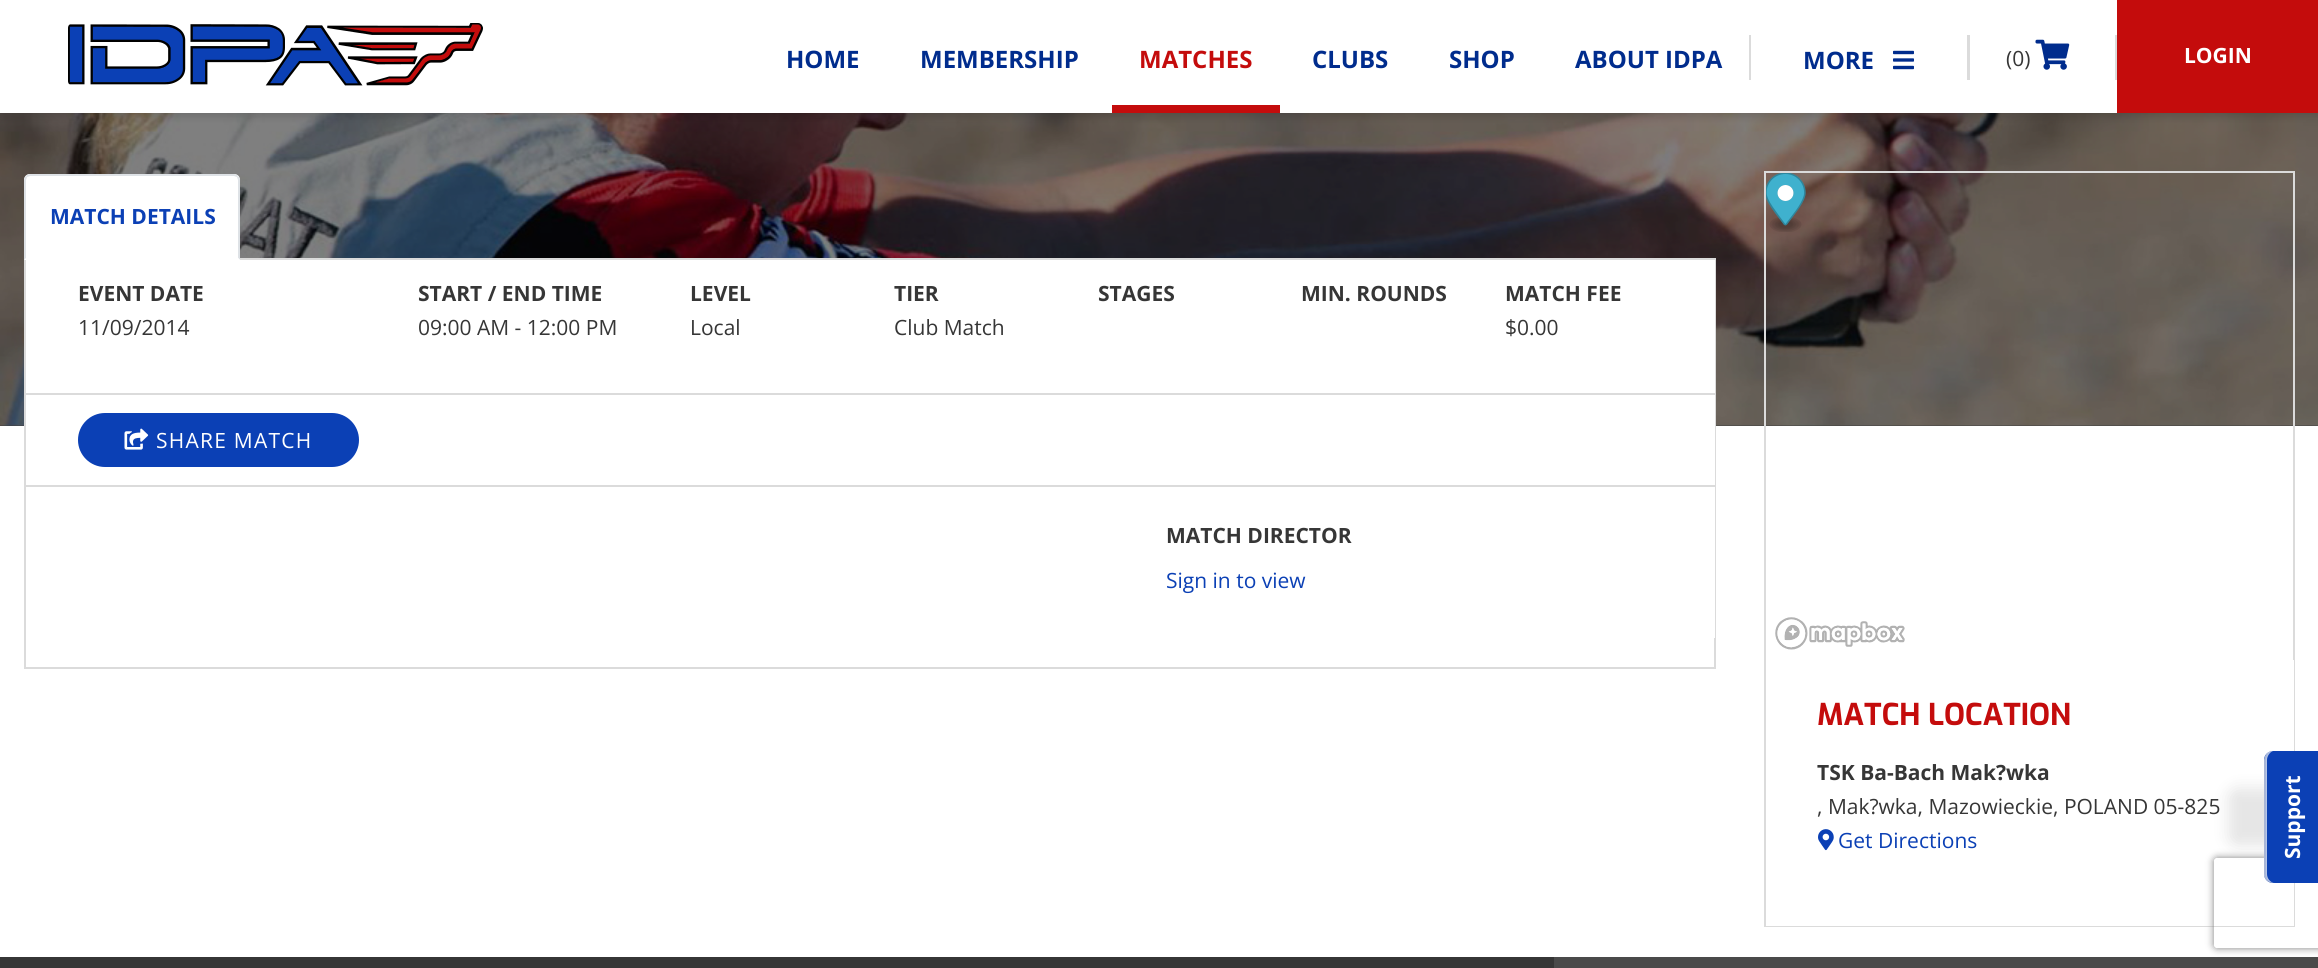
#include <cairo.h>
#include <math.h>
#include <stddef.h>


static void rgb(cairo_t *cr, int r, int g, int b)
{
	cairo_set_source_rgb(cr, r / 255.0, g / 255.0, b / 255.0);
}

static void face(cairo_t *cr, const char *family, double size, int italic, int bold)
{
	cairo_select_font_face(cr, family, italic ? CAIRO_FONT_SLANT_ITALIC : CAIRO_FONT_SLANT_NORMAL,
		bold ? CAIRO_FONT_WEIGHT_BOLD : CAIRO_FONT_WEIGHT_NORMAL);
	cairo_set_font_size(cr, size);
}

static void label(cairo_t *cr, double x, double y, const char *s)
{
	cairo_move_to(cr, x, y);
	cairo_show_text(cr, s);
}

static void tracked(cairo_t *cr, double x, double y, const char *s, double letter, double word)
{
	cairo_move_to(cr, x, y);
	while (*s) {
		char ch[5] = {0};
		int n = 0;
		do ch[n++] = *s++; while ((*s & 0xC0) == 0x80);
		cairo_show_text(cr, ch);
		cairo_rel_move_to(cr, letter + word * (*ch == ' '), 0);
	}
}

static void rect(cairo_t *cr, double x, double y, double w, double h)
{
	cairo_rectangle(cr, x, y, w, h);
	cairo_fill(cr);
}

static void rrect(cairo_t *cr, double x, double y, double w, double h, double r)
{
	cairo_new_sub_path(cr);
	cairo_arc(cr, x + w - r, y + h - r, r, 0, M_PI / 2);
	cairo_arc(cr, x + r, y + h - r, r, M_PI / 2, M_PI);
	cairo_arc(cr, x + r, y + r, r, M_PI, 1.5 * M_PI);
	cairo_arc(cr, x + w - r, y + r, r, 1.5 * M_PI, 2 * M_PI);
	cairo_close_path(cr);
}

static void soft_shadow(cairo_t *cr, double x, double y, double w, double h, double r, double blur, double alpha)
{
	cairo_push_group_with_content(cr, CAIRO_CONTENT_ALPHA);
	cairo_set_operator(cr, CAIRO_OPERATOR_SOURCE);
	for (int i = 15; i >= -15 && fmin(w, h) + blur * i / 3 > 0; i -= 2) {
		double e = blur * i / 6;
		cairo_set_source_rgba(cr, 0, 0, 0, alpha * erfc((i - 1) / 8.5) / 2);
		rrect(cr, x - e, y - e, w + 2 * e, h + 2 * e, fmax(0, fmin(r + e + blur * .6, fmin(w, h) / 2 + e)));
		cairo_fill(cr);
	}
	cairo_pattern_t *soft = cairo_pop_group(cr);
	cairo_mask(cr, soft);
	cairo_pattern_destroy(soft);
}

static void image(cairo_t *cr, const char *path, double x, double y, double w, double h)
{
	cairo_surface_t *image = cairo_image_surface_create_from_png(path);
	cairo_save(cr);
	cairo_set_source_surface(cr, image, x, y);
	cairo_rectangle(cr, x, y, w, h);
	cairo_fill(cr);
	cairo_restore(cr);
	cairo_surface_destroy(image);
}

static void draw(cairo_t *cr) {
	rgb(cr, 255, 255, 255);
	cairo_paint(cr);
	rgb(cr, 64, 64, 64);
	rect(cr, 0, 425, 2318, 1);
	image(cr, "image3.png", 0, 113, 2318, 313);
	rgb(cr, 0, 0, 0);
	soft_shadow(cr, 0, 3, 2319, 113, 0, 4.5, 0.15);
	rgb(cr, 255, 255, 255);
	rect(cr, 0, 0, 2117, 113);
	image(cr, "image0.png", 68, 23, 415, 63);
	face(cr, "Open Sans", 24, 0, 1);
	rgb(cr, 0, 44, 141);
	label(cr, 786, 68, "HOME");
	label(cr, 920, 68, "MEMBERSHIP");
	rgb(cr, 196, 12, 12);
	rect(cr, 1112, 105, 168, 8);
	label(cr, 1139, 68, "MATCHES");
	rgb(cr, 0, 44, 141);
	label(cr, 1312, 68, "CLUBS");
	label(cr, 1449, 68, "SHOP");
	label(cr, 1575, 68, "ABOUT IDPA");
	rgb(cr, 219, 219, 219);
	rect(cr, 1967, 35, 3, 45);
	rect(cr, 1749, 35, 2, 45);
	rgb(cr, 0, 44, 141);
	label(cr, 1803, 69, "MORE");
	image(cr, "image1.png", 1893, 50, 21, 20);
	rgb(cr, 219, 219, 219);
	rect(cr, 2115, 35, 2, 45);
	face(cr, "Open Sans", 21, 0, 0);
	rgb(cr, 54, 54, 54);
	label(cr, 2006, 66, "(0)");
	image(cr, "image2.png", 2035, 39, 35, 31);
	rgb(cr, 196, 12, 12);
	rect(cr, 2117, 0, 201, 113);
	face(cr, "Open Sans", 21, 0, 1);
	rgb(cr, 255, 255, 255);
	label(cr, 2184, 63, "LOGIN");
	cairo_rectangle(cr, 25, 259, 1690, 409);
	rgb(cr, 219, 219, 219);
	cairo_stroke(cr);
	rgb(cr, 255, 255, 255);
	cairo_new_path(cr);
	cairo_move_to(cr, 30, 174);
	cairo_line_to(cr, 234, 174);
	cairo_curve_to(cr, 237.5, 174, 240, 176.5, 240, 180);
	cairo_line_to(cr, 240, 260);
	cairo_line_to(cr, 24, 260);
	cairo_line_to(cr, 24, 180);
	cairo_curve_to(cr, 24, 176.5, 26.5, 174, 30, 174);
	cairo_close_path(cr);
	cairo_fill(cr);
	rgb(cr, 222, 226, 230);
	cairo_new_path(cr);
	cairo_move_to(cr, 30, 174);
	cairo_curve_to(cr, 28, 174, 27, 175, 26, 176);
	cairo_line_to(cr, 27, 177);
	cairo_line_to(cr, 30, 176);
	cairo_line_to(cr, 234, 176);
	cairo_line_to(cr, 237, 177);
	cairo_line_to(cr, 238, 176);
	cairo_curve_to(cr, 237, 175, 236, 174, 234, 174);
	cairo_close_path(cr);
	cairo_fill(cr);
	cairo_new_path(cr);
	cairo_move_to(cr, 240, 260);
	cairo_line_to(cr, 240, 179);
	cairo_line_to(cr, 238, 176);
	cairo_line_to(cr, 237, 177);
	cairo_line_to(cr, 238, 180);
	cairo_line_to(cr, 238, 258);
	cairo_close_path(cr);
	cairo_fill(cr);
	rgb(cr, 255, 255, 255);
	cairo_new_path(cr);
	cairo_move_to(cr, 240, 260);
	cairo_line_to(cr, 24, 260);
	cairo_line_to(cr, 26, 258);
	cairo_line_to(cr, 238, 258);
	cairo_close_path(cr);
	cairo_fill(cr);
	rgb(cr, 222, 226, 230);
	cairo_new_path(cr);
	cairo_move_to(cr, 24, 260);
	cairo_line_to(cr, 26, 258);
	cairo_line_to(cr, 26, 180);
	cairo_line_to(cr, 27, 177);
	cairo_line_to(cr, 26, 176);
	cairo_curve_to(cr, 25, 177, 24, 178, 24, 180);
	cairo_close_path(cr);
	cairo_fill(cr);
	rgb(cr, 11, 64, 181);
	label(cr, 50, 224, "MATCH DETAILS");
	rgb(cr, 255, 255, 255);
	rect(cr, 26, 260, 1689, 378);
	rgb(cr, 219, 219, 219);
	rect(cr, 26, 393, 1689, 2);
	rgb(cr, 54, 54, 54);
	label(cr, 78, 301, "EVENT DATE");
	face(cr, "Open Sans", 21, 0, 0);
	label(cr, 78, 335, "11/09/2014");
	face(cr, "Open Sans", 21, 0, 1);
	label(cr, 418, 301, "START / END TIME");
	face(cr, "Open Sans", 21, 0, 0);
	label(cr, 418, 335, "09:00 AM - 12:00 PM");
	face(cr, "Open Sans", 21, 0, 1);
	label(cr, 690, 301, "LEVEL");
	face(cr, "Open Sans", 21, 0, 0);
	label(cr, 690, 335, "Local");
	face(cr, "Open Sans", 21, 0, 1);
	label(cr, 894, 301, "TIER");
	face(cr, "Open Sans", 21, 0, 0);
	label(cr, 894, 335, "Club Match");
	face(cr, "Open Sans", 21, 0, 1);
	label(cr, 1098, 301, "STAGES");
	label(cr, 1301, 301, "MIN. ROUNDS");
	label(cr, 1505, 301, "MATCH FEE");
	face(cr, "Open Sans", 21, 0, 0);
	label(cr, 1505, 335, "$0.00");
	rgb(cr, 219, 219, 219);
	rect(cr, 26, 485, 1689, 2);
	rgb(cr, 11, 64, 181);
	rrect(cr, 79, 414, 279, 52, 26);
	cairo_fill_preserve(cr);
	cairo_stroke(cr);
	image(cr, "image4.png", 124, 428, 25, 22);
	rgb(cr, 255, 255, 255);
	tracked(cr, 156, 448, "SHARE MATCH", 1.25, 0);
	face(cr, "Open Sans", 21, 0, 1);
	rgb(cr, 54, 54, 54);
	label(cr, 1166, 543, "MATCH DIRECTOR");
	face(cr, "Open Sans", 21, 0, 0);
	rgb(cr, 11, 64, 181);
	label(cr, 1166, 588, "Sign in to view");
	cairo_rectangle(cr, 1765, 172, 529, 754);
	rgb(cr, 219, 219, 219);
	cairo_stroke(cr);
	image(cr, "image5.png", 1766, 173, 40, 59);
	image(cr, "image6.png", 1775, 617, 130, 33);
	rgb(cr, 255, 255, 255);
	rect(cr, 1766, 660, 528, 266);
	face(cr, "Exo", 30, 0, 1);
	rgb(cr, 196, 12, 12);
	label(cr, 1817, 725, "MATCH LOCATION");
	face(cr, "Open Sans", 21, 0, 1);
	rgb(cr, 54, 54, 54);
	label(cr, 1817, 780, "TSK Ba-Bach Mak?wka");
	face(cr, "Open Sans", 21, 0, 0);
	label(cr, 1817, 814, ", Mak?wka, Mazowieckie, POLAND 05-825");
	image(cr, "image7.png", 1818, 829, 16, 22);
	rgb(cr, 11, 64, 181);
	label(cr, 1838, 848, "Get Directions");
	rgb(cr, 0, 0, 0);
	soft_shadow(cr, 2228, 788, 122, 58, 9, 7.5, 0.1);
	rgb(cr, 74, 74, 74);
	rect(cr, 1554, 957, 764, 11);
	cairo_save(cr);
	cairo_set_fill_rule(cr, CAIRO_FILL_RULE_EVEN_ODD);
	cairo_new_path(cr);
	cairo_move_to(cr, 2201, 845);
	cairo_line_to(cr, 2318, 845);
	cairo_line_to(cr, 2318, 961);
	cairo_line_to(cr, 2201, 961);
	cairo_close_path(cr);
	cairo_move_to(cr, 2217, 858);
	cairo_line_to(cr, 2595, 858);
	cairo_curve_to(cr, 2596.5, 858, 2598, 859.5, 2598, 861);
	cairo_line_to(cr, 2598, 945);
	cairo_curve_to(cr, 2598, 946.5, 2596.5, 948, 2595, 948);
	cairo_line_to(cr, 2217, 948);
	cairo_curve_to(cr, 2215.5, 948, 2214, 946.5, 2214, 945);
	cairo_line_to(cr, 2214, 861);
	cairo_curve_to(cr, 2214, 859.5, 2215.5, 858, 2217, 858);
	cairo_close_path(cr);
	cairo_clip(cr);
	rgb(cr, 128, 128, 128);
	soft_shadow(cr, 2214, 858, 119, 90, 3, 4, 1);
	cairo_restore(cr);
	rgb(cr, 11, 64, 181);
	cairo_new_path(cr);
	cairo_move_to(cr, 2264, 874);
	cairo_line_to(cr, 2264, 760);
	cairo_curve_to(cr, 2264, 755, 2268, 751, 2273, 751);
	cairo_line_to(cr, 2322, 751);
	cairo_line_to(cr, 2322, 883);
	cairo_line_to(cr, 2273, 883);
	cairo_curve_to(cr, 2268, 883, 2264, 879, 2264, 874);
	cairo_close_path(cr);
	cairo_fill(cr);
	cairo_set_source_rgba(cr, 1, 1, 1, 0.7);
	cairo_new_path(cr);
	cairo_move_to(cr, 2267, 874);
	cairo_curve_to(cr, 2267, 879, 2271, 883, 2275, 883);
	cairo_curve_to(cr, 2259, 883, 2264, 866, 2264, 855);
	cairo_line_to(cr, 2264, 779);
	cairo_curve_to(cr, 2264, 772, 2260, 751, 2273, 751);
	cairo_curve_to(cr, 2270, 752, 2267, 756, 2267, 760);
	cairo_close_path(cr);
	cairo_fill(cr);
	cairo_set_source_rgba(cr, 0, 0, 0, 0.08);
	cairo_new_path(cr);
	cairo_move_to(cr, 2266, 874);
	cairo_curve_to(cr, 2266, 879, 2270, 883, 2274, 883);
	cairo_line_to(cr, 2273, 883);
	cairo_curve_to(cr, 2268, 883, 2264, 879, 2264, 874);
	cairo_line_to(cr, 2264, 760);
	cairo_curve_to(cr, 2264, 756, 2268, 752, 2272, 751);
	cairo_curve_to(cr, 2269, 752, 2266, 756, 2266, 760);
	cairo_close_path(cr);
	cairo_fill(cr);
	face(cr, "Open Sans", 21, 0, 1);
	rgb(cr, 255, 255, 255);
	cairo_save(cr);
	cairo_translate(cr, 2300, 859);
	cairo_rotate(cr, -90 * M_PI / 180);
	label(cr, 0, 0, "Support");
	cairo_restore(cr);
	rgb(cr, 54, 54, 54);
	rect(cr, 0, 957, 1554, 11);
}

int main(void) {
	cairo_surface_t *surface = cairo_image_surface_create(CAIRO_FORMAT_RGB24, 2318, 968);
	cairo_t *cr = cairo_create(surface);
	cairo_font_options_t *options = cairo_font_options_create();
	cairo_font_options_set_hint_metrics(options, CAIRO_HINT_METRICS_OFF);
	cairo_font_options_set_hint_style(options, CAIRO_HINT_STYLE_NONE);
	cairo_set_font_options(cr, options);
	cairo_set_miter_limit(cr, 4);
	draw(cr);
	cairo_surface_write_to_png(surface, "render.png");
	cairo_font_options_destroy(options);
	cairo_destroy(cr);
	cairo_surface_destroy(surface);
	return 0;
}
